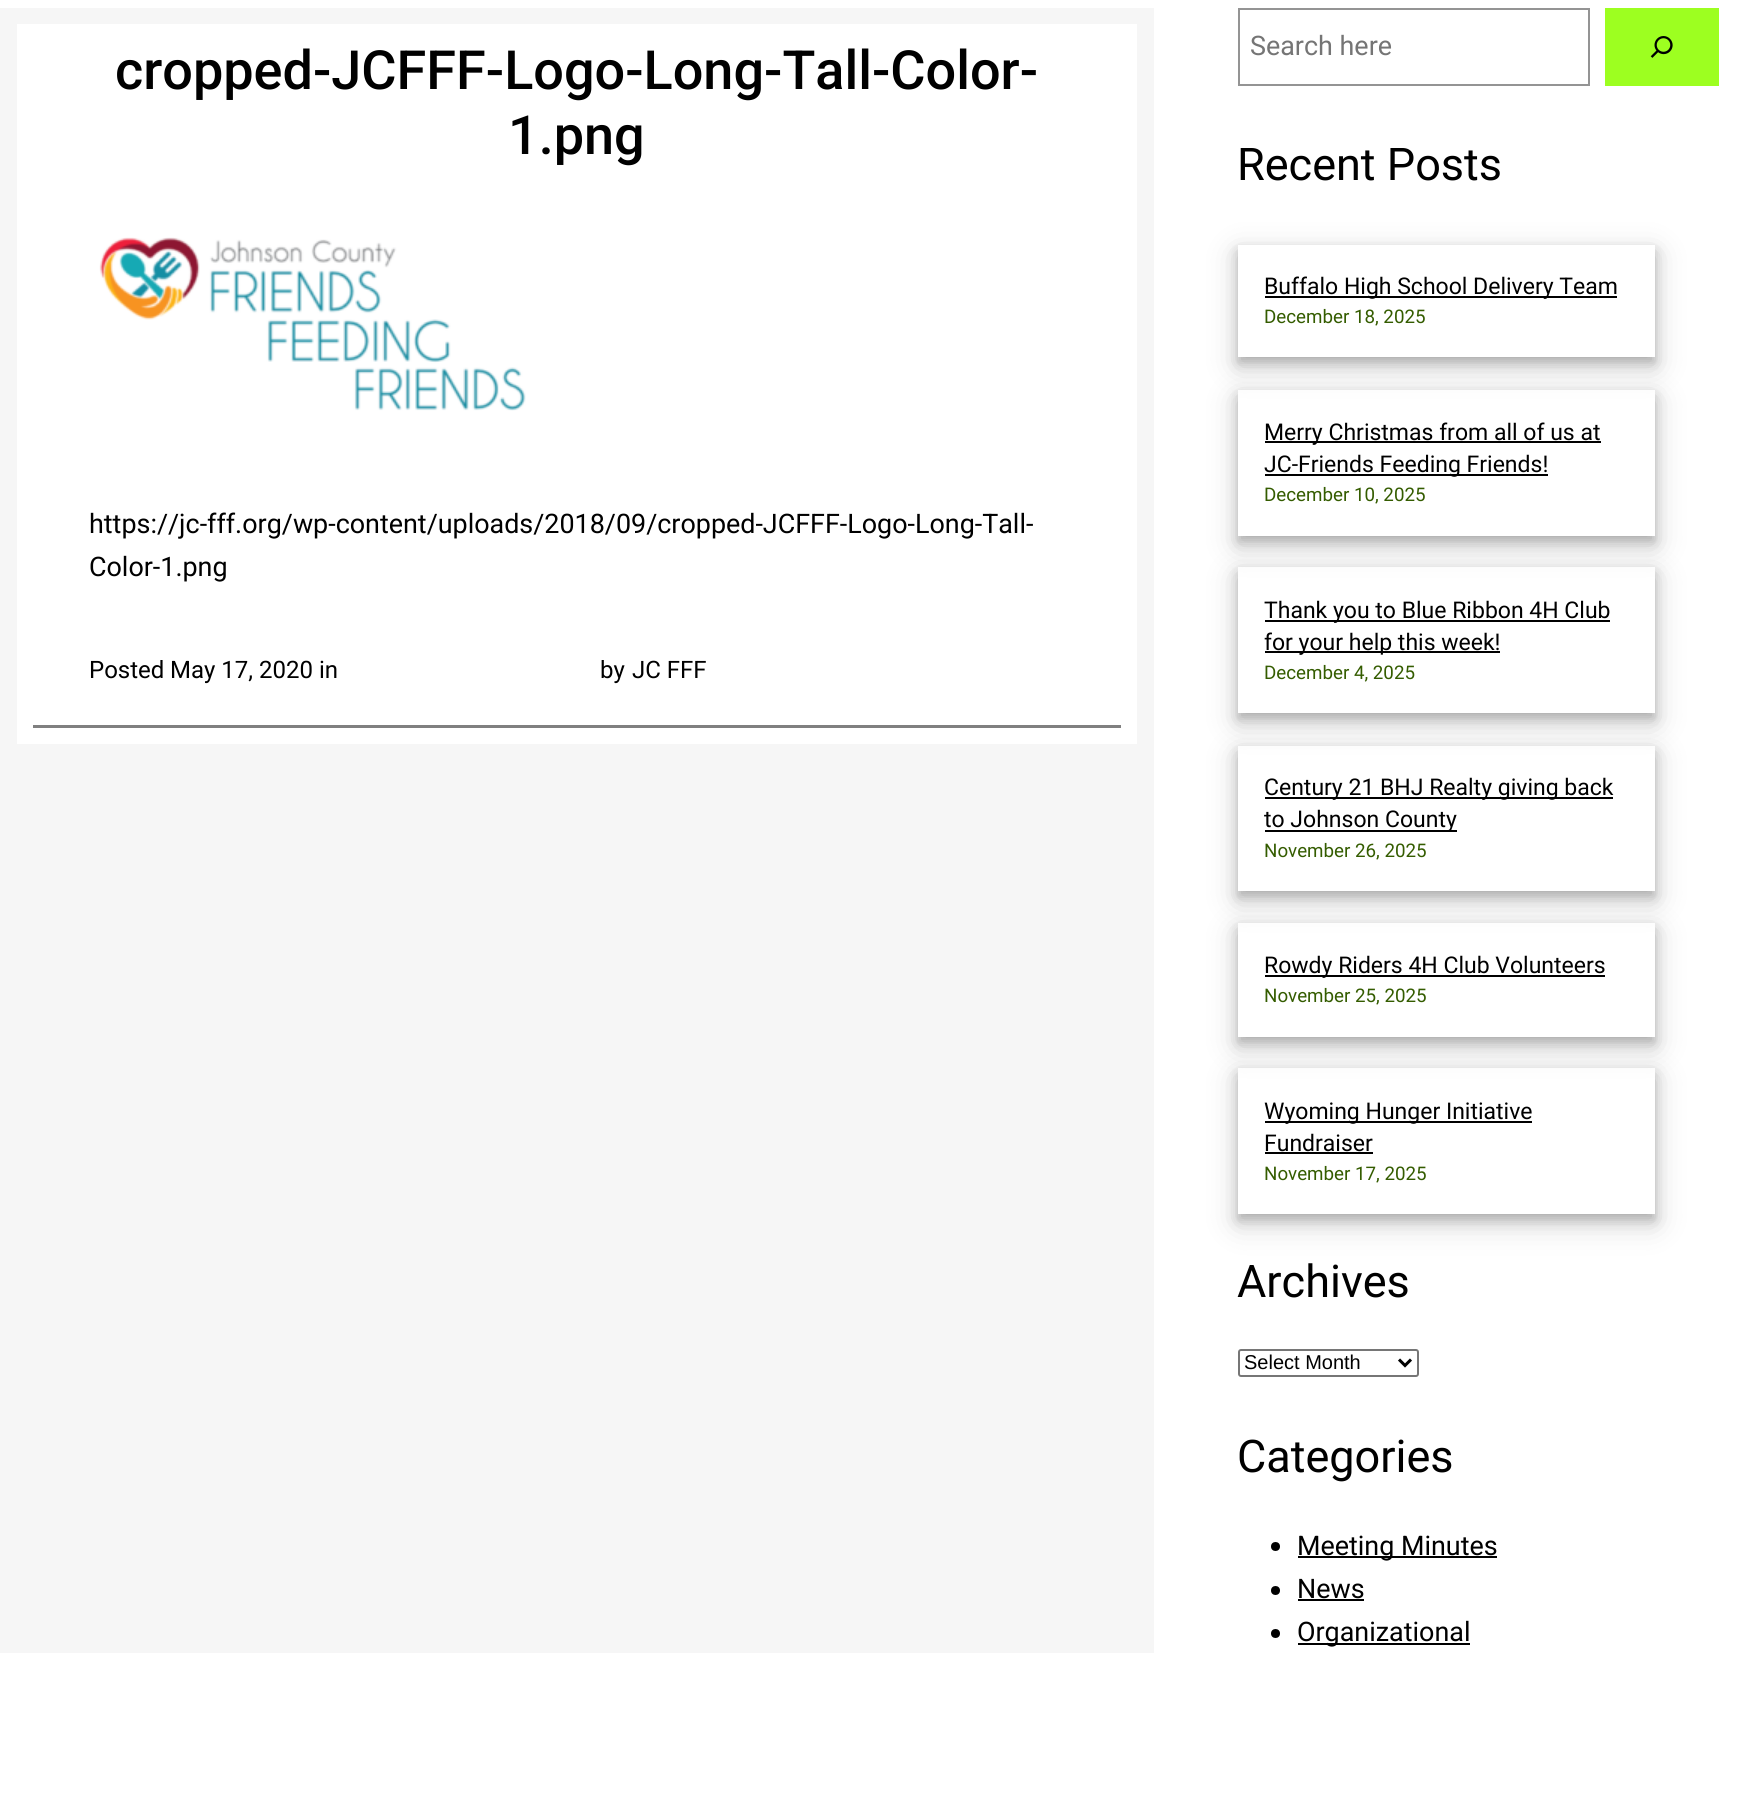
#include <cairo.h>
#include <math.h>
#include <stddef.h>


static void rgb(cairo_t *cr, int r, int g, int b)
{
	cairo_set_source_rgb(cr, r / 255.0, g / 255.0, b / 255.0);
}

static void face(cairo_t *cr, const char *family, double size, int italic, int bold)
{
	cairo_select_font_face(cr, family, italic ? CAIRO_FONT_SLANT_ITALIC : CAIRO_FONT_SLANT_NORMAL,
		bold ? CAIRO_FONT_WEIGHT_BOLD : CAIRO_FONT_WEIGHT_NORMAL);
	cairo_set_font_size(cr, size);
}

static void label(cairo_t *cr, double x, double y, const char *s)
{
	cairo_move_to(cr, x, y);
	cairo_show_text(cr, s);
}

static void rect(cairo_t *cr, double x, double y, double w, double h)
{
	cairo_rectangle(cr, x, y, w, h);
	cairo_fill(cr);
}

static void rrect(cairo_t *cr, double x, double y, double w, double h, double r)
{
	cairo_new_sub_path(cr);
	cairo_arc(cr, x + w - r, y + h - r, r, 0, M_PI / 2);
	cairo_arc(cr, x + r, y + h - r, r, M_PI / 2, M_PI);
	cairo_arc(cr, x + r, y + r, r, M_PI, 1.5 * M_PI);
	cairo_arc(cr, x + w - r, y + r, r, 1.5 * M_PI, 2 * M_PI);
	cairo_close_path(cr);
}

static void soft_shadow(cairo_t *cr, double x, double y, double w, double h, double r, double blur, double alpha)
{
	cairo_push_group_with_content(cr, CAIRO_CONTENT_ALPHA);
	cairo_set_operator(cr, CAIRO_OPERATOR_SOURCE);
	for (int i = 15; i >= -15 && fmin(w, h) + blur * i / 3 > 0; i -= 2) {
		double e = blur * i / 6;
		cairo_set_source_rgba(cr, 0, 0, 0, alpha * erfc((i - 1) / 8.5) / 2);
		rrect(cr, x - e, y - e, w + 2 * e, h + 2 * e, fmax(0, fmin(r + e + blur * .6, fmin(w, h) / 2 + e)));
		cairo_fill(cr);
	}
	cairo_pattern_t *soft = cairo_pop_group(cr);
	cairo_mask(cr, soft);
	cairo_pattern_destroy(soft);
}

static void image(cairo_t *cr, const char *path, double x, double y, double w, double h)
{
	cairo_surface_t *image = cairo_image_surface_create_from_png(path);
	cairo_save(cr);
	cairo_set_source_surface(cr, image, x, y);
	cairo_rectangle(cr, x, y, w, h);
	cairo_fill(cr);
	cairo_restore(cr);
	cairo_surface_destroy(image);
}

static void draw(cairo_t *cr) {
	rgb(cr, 255, 255, 255);
	cairo_paint(cr);
	rgb(cr, 246, 246, 246);
	rect(cr, 0, 8, 1154, 1645);
	rgb(cr, 255, 255, 255);
	rect(cr, 17, 24, 1120, 720);
	face(cr, "Roboto Medium", 54, 0, 0);
	rgb(cr, 0, 0, 0);
	label(cr, 115, 89, "cropped-JCFFF-Logo-Long-Tall-Color-");
	label(cr, 508, 154, "1.png");
	image(cr, "image0.png", 99, 237, 427, 174);
	face(cr, "Roboto", 26.9, 0, 0);
	label(cr, 89, 533, "https://jc-fff.org/wp-content/uploads/2018/09/cropped-JCFFF-Logo-Long-Tall-");
	label(cr, 89, 576, "Color-1.png");
	face(cr, "Roboto", 24, 0, 0);
	label(cr, 89, 678, "Posted");
	label(cr, 170, 678, "May 17, 2020");
	label(cr, 319, 678, "in");
	label(cr, 600, 678, "by");
	label(cr, 632, 678, "JC FFF");
	rgb(cr, 128, 128, 128);
	rect(cr, 33, 725, 1088, 3);
	cairo_rectangle(cr, 1239, 9, 350, 76);
	rgb(cr, 148, 148, 148);
	cairo_stroke(cr);
	face(cr, "Roboto", 26.9, 0, 0);
	rgb(cr, 117, 117, 117);
	label(cr, 1250, 55, "Search here");
	rgb(cr, 157, 255, 32);
	rect(cr, 1605, 8, 114, 78);
	image(cr, "image1.png", 1650, 36, 23, 22);
	face(cr, "Roboto", 45, 0, 0);
	rgb(cr, 0, 0, 0);
	label(cr, 1237, 180, "Recent Posts");
	cairo_save(cr);
	cairo_set_fill_rule(cr, CAIRO_FILL_RULE_EVEN_ODD);
	cairo_new_path(cr);
	cairo_move_to(cr, 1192, 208);
	cairo_line_to(cr, 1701, 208);
	cairo_line_to(cr, 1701, 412);
	cairo_line_to(cr, 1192, 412);
	cairo_close_path(cr);
	cairo_move_to(cr, 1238, 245);
	cairo_line_to(cr, 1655, 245);
	cairo_line_to(cr, 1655, 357);
	cairo_line_to(cr, 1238, 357);
	cairo_close_path(cr);
	cairo_clip(cr);
	rgb(cr, 0, 0, 0);
	soft_shadow(cr, 1238, 254, 417, 112, 0, 15, 0.19);
	cairo_restore(cr);
	cairo_save(cr);
	cairo_set_fill_rule(cr, CAIRO_FILL_RULE_EVEN_ODD);
	cairo_new_path(cr);
	cairo_move_to(cr, 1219, 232);
	cairo_line_to(cr, 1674, 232);
	cairo_line_to(cr, 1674, 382);
	cairo_line_to(cr, 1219, 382);
	cairo_close_path(cr);
	cairo_move_to(cr, 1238, 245);
	cairo_line_to(cr, 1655, 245);
	cairo_line_to(cr, 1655, 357);
	cairo_line_to(cr, 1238, 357);
	cairo_close_path(cr);
	cairo_clip(cr);
	rgb(cr, 0, 0, 0);
	soft_shadow(cr, 1238, 251, 417, 112, 0, 6, 0.2);
	cairo_restore(cr);
	rect(cr, 1265, 296, 352, 2);
	face(cr, "Roboto", 23, 0, 0);
	label(cr, 1264, 294, "Buffalo High School Delivery Team");
	face(cr, "Roboto", 18.75, 0, 0);
	rgb(cr, 52, 92, 0);
	label(cr, 1264, 323, "December 18, 2025");
	cairo_save(cr);
	cairo_set_fill_rule(cr, CAIRO_FILL_RULE_EVEN_ODD);
	cairo_new_path(cr);
	cairo_move_to(cr, 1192, 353);
	cairo_line_to(cr, 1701, 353);
	cairo_line_to(cr, 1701, 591);
	cairo_line_to(cr, 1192, 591);
	cairo_close_path(cr);
	cairo_move_to(cr, 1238, 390);
	cairo_line_to(cr, 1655, 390);
	cairo_line_to(cr, 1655, 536);
	cairo_line_to(cr, 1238, 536);
	cairo_close_path(cr);
	cairo_clip(cr);
	rgb(cr, 0, 0, 0);
	soft_shadow(cr, 1238, 399, 417, 146, 0, 15, 0.19);
	cairo_restore(cr);
	cairo_save(cr);
	cairo_set_fill_rule(cr, CAIRO_FILL_RULE_EVEN_ODD);
	cairo_new_path(cr);
	cairo_move_to(cr, 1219, 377);
	cairo_line_to(cr, 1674, 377);
	cairo_line_to(cr, 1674, 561);
	cairo_line_to(cr, 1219, 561);
	cairo_close_path(cr);
	cairo_move_to(cr, 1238, 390);
	cairo_line_to(cr, 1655, 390);
	cairo_line_to(cr, 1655, 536);
	cairo_line_to(cr, 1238, 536);
	cairo_close_path(cr);
	cairo_clip(cr);
	rgb(cr, 0, 0, 0);
	soft_shadow(cr, 1238, 396, 417, 146, 0, 6, 0.2);
	cairo_restore(cr);
	rgb(cr, 0, 0, 0);
	rect(cr, 1265, 441, 336, 2);
	face(cr, "Roboto", 23, 0, 0);
	label(cr, 1264, 440, "Merry Christmas from all of us at");
	rect(cr, 1265, 474, 283, 2);
	label(cr, 1264, 472, "JC-Friends Feeding Friends!");
	face(cr, "Roboto", 18.75, 0, 0);
	rgb(cr, 52, 92, 0);
	label(cr, 1264, 501, "December 10, 2025");
	cairo_save(cr);
	cairo_set_fill_rule(cr, CAIRO_FILL_RULE_EVEN_ODD);
	cairo_new_path(cr);
	cairo_move_to(cr, 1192, 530);
	cairo_line_to(cr, 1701, 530);
	cairo_line_to(cr, 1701, 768);
	cairo_line_to(cr, 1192, 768);
	cairo_close_path(cr);
	cairo_move_to(cr, 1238, 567);
	cairo_line_to(cr, 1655, 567);
	cairo_line_to(cr, 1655, 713);
	cairo_line_to(cr, 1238, 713);
	cairo_close_path(cr);
	cairo_clip(cr);
	rgb(cr, 0, 0, 0);
	soft_shadow(cr, 1238, 576, 417, 146, 0, 15, 0.19);
	cairo_restore(cr);
	cairo_save(cr);
	cairo_set_fill_rule(cr, CAIRO_FILL_RULE_EVEN_ODD);
	cairo_new_path(cr);
	cairo_move_to(cr, 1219, 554);
	cairo_line_to(cr, 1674, 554);
	cairo_line_to(cr, 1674, 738);
	cairo_line_to(cr, 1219, 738);
	cairo_close_path(cr);
	cairo_move_to(cr, 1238, 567);
	cairo_line_to(cr, 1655, 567);
	cairo_line_to(cr, 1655, 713);
	cairo_line_to(cr, 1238, 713);
	cairo_close_path(cr);
	cairo_clip(cr);
	rgb(cr, 0, 0, 0);
	soft_shadow(cr, 1238, 573, 417, 146, 0, 6, 0.2);
	cairo_restore(cr);
	rgb(cr, 0, 0, 0);
	rect(cr, 1265, 620, 345, 2);
	face(cr, "Roboto", 23, 0, 0);
	label(cr, 1264, 618, "Thank you to Blue Ribbon 4H Club");
	rect(cr, 1265, 651, 235, 2);
	label(cr, 1264, 650, "for your help this week!");
	face(cr, "Roboto", 18.75, 0, 0);
	rgb(cr, 52, 92, 0);
	label(cr, 1264, 679, "December 4, 2025");
	cairo_save(cr);
	cairo_set_fill_rule(cr, CAIRO_FILL_RULE_EVEN_ODD);
	cairo_new_path(cr);
	cairo_move_to(cr, 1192, 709);
	cairo_line_to(cr, 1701, 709);
	cairo_line_to(cr, 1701, 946);
	cairo_line_to(cr, 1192, 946);
	cairo_close_path(cr);
	cairo_move_to(cr, 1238, 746);
	cairo_line_to(cr, 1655, 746);
	cairo_line_to(cr, 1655, 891);
	cairo_line_to(cr, 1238, 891);
	cairo_close_path(cr);
	cairo_clip(cr);
	rgb(cr, 0, 0, 0);
	soft_shadow(cr, 1238, 755, 417, 145, 0, 15, 0.19);
	cairo_restore(cr);
	cairo_save(cr);
	cairo_set_fill_rule(cr, CAIRO_FILL_RULE_EVEN_ODD);
	cairo_new_path(cr);
	cairo_move_to(cr, 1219, 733);
	cairo_line_to(cr, 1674, 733);
	cairo_line_to(cr, 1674, 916);
	cairo_line_to(cr, 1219, 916);
	cairo_close_path(cr);
	cairo_move_to(cr, 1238, 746);
	cairo_line_to(cr, 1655, 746);
	cairo_line_to(cr, 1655, 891);
	cairo_line_to(cr, 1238, 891);
	cairo_close_path(cr);
	cairo_clip(cr);
	rgb(cr, 0, 0, 0);
	soft_shadow(cr, 1238, 752, 417, 145, 0, 6, 0.2);
	cairo_restore(cr);
	rgb(cr, 0, 0, 0);
	rect(cr, 1265, 797, 348, 2);
	face(cr, "Roboto", 23, 0, 0);
	label(cr, 1264, 795, "Century 21 BHJ Realty giving back");
	rect(cr, 1265, 830, 192, 2);
	label(cr, 1264, 827, "to Johnson County");
	face(cr, "Roboto", 18.75, 0, 0);
	rgb(cr, 52, 92, 0);
	label(cr, 1264, 857, "November 26, 2025");
	cairo_save(cr);
	cairo_set_fill_rule(cr, CAIRO_FILL_RULE_EVEN_ODD);
	cairo_new_path(cr);
	cairo_move_to(cr, 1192, 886);
	cairo_line_to(cr, 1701, 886);
	cairo_line_to(cr, 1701, 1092);
	cairo_line_to(cr, 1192, 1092);
	cairo_close_path(cr);
	cairo_move_to(cr, 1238, 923);
	cairo_line_to(cr, 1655, 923);
	cairo_line_to(cr, 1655, 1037);
	cairo_line_to(cr, 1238, 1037);
	cairo_close_path(cr);
	cairo_clip(cr);
	rgb(cr, 0, 0, 0);
	soft_shadow(cr, 1238, 932, 417, 114, 0, 15, 0.19);
	cairo_restore(cr);
	cairo_save(cr);
	cairo_set_fill_rule(cr, CAIRO_FILL_RULE_EVEN_ODD);
	cairo_new_path(cr);
	cairo_move_to(cr, 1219, 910);
	cairo_line_to(cr, 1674, 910);
	cairo_line_to(cr, 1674, 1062);
	cairo_line_to(cr, 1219, 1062);
	cairo_close_path(cr);
	cairo_move_to(cr, 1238, 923);
	cairo_line_to(cr, 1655, 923);
	cairo_line_to(cr, 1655, 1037);
	cairo_line_to(cr, 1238, 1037);
	cairo_close_path(cr);
	cairo_clip(cr);
	rgb(cr, 0, 0, 0);
	soft_shadow(cr, 1238, 929, 417, 114, 0, 6, 0.2);
	cairo_restore(cr);
	rgb(cr, 0, 0, 0);
	rect(cr, 1265, 975, 340, 2);
	face(cr, "Roboto", 23, 0, 0);
	label(cr, 1264, 973, "Rowdy Riders 4H Club Volunteers");
	face(cr, "Roboto", 18.75, 0, 0);
	rgb(cr, 52, 92, 0);
	label(cr, 1264, 1002, "November 25, 2025");
	cairo_save(cr);
	cairo_set_fill_rule(cr, CAIRO_FILL_RULE_EVEN_ODD);
	cairo_new_path(cr);
	cairo_move_to(cr, 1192, 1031);
	cairo_line_to(cr, 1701, 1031);
	cairo_line_to(cr, 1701, 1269);
	cairo_line_to(cr, 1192, 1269);
	cairo_close_path(cr);
	cairo_move_to(cr, 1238, 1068);
	cairo_line_to(cr, 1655, 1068);
	cairo_line_to(cr, 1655, 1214);
	cairo_line_to(cr, 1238, 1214);
	cairo_close_path(cr);
	cairo_clip(cr);
	rgb(cr, 0, 0, 0);
	soft_shadow(cr, 1238, 1077, 417, 146, 0, 15, 0.19);
	cairo_restore(cr);
	cairo_save(cr);
	cairo_set_fill_rule(cr, CAIRO_FILL_RULE_EVEN_ODD);
	cairo_new_path(cr);
	cairo_move_to(cr, 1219, 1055);
	cairo_line_to(cr, 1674, 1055);
	cairo_line_to(cr, 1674, 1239);
	cairo_line_to(cr, 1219, 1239);
	cairo_close_path(cr);
	cairo_move_to(cr, 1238, 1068);
	cairo_line_to(cr, 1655, 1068);
	cairo_line_to(cr, 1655, 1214);
	cairo_line_to(cr, 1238, 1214);
	cairo_close_path(cr);
	cairo_clip(cr);
	rgb(cr, 0, 0, 0);
	soft_shadow(cr, 1238, 1074, 417, 146, 0, 6, 0.2);
	cairo_restore(cr);
	rgb(cr, 0, 0, 0);
	rect(cr, 1265, 1121, 267, 2);
	face(cr, "Roboto", 23, 0, 0);
	label(cr, 1264, 1119, "Wyoming Hunger Initiative");
	label(cr, 1264, 1151, "Fundraiser");
	rect(cr, 1265, 1152, 108, 2);
	face(cr, "Roboto", 18.75, 0, 0);
	rgb(cr, 52, 92, 0);
	label(cr, 1264, 1180, "November 17, 2025");
	face(cr, "Roboto", 45, 0, 0);
	rgb(cr, 0, 0, 0);
	label(cr, 1237, 1297, "Archives");
	rrect(cr, 1239, 1350, 179, 26, 2);
	rgb(cr, 118, 118, 118);
	cairo_stroke(cr);
	cairo_new_path(cr);
	cairo_move_to(cr, 1399, 1359.5);
	cairo_line_to(cr, 1405, 1365.5);
	cairo_line_to(cr, 1411, 1359.5);
	rgb(cr, 0, 0, 0);
	cairo_set_line_width(cr, 3);
	cairo_stroke(cr);
	face(cr, "Liberation Sans", 20, 0, 0);
	label(cr, 1244, 1369, "Select Month");
	face(cr, "Roboto", 45, 0, 0);
	label(cr, 1237, 1472, "Categories");
	cairo_new_path(cr);
	cairo_arc(cr, 1275.5, 1546.5, 4.5, 0, 2 * M_PI);
	cairo_fill(cr);
	rect(cr, 1298, 1556, 199, 2);
	face(cr, "Roboto", 26.9, 0, 0);
	label(cr, 1297, 1555, "Meeting Minutes");
	cairo_new_path(cr);
	cairo_arc(cr, 1275.5, 1590.5, 4.5, 0, 2 * M_PI);
	cairo_fill(cr);
	label(cr, 1297, 1598, "News");
	rect(cr, 1298, 1599, 66, 2);
	cairo_new_path(cr);
	cairo_arc(cr, 1275.5, 1633.5, 4.5, 0, 2 * M_PI);
	cairo_fill(cr);
	rect(cr, 1298, 1643, 172, 2);
	label(cr, 1297, 1641, "Organizational");
}

int main(void) {
	cairo_surface_t *surface = cairo_image_surface_create(CAIRO_FORMAT_RGB24, 1749, 1796);
	cairo_t *cr = cairo_create(surface);
	cairo_font_options_t *options = cairo_font_options_create();
	cairo_font_options_set_hint_metrics(options, CAIRO_HINT_METRICS_OFF);
	cairo_font_options_set_hint_style(options, CAIRO_HINT_STYLE_NONE);
	cairo_set_font_options(cr, options);
	cairo_set_miter_limit(cr, 4);
	draw(cr);
	cairo_surface_write_to_png(surface, "render.png");
	cairo_font_options_destroy(options);
	cairo_destroy(cr);
	cairo_surface_destroy(surface);
	return 0;
}
